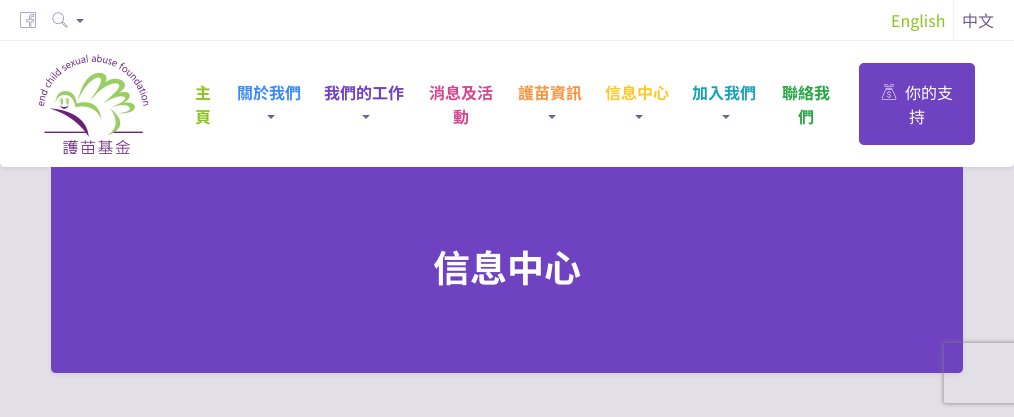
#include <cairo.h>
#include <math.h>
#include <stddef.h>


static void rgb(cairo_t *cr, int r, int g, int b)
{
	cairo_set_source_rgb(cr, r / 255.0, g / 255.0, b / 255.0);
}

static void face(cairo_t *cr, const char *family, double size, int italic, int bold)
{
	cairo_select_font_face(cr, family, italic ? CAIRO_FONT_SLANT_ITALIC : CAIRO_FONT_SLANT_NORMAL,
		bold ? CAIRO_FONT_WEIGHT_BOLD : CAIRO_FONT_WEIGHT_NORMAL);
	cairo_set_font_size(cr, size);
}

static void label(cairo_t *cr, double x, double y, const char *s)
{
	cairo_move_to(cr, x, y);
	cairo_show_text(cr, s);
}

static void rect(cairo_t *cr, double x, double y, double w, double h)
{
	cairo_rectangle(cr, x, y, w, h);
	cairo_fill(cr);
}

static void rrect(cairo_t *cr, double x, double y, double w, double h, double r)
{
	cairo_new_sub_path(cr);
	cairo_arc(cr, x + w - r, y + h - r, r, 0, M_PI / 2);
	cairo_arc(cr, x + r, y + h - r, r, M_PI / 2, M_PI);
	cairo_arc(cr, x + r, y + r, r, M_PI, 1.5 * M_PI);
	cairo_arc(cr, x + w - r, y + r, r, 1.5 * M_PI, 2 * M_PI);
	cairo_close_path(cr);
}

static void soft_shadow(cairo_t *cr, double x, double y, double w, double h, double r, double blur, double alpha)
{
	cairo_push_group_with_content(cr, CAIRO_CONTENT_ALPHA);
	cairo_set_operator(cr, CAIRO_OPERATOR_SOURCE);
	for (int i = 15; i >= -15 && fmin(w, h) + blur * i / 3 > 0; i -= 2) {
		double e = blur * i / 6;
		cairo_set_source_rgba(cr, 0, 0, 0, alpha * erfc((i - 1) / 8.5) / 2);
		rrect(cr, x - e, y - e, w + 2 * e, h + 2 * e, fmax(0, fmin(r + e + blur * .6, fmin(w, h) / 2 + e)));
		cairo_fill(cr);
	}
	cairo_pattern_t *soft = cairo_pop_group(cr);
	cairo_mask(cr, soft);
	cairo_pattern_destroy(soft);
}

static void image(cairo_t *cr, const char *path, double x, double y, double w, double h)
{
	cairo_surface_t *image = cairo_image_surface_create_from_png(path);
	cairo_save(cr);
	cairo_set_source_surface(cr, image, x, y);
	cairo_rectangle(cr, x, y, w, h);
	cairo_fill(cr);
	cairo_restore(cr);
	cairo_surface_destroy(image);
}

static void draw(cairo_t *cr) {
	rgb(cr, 226, 223, 230);
	cairo_paint(cr);
	rgb(cr, 0, 0, 0);
	soft_shadow(cr, 0, 2, 1014, 167, 5, 2, 0.07);
	rgb(cr, 255, 255, 255);
	cairo_new_path(cr);
	cairo_move_to(cr, 0, 0);
	cairo_line_to(cr, 1014, 0);
	cairo_line_to(cr, 1014, 162);
	cairo_curve_to(cr, 1014, 165, 1012, 167, 1009, 167);
	cairo_line_to(cr, 5, 167);
	cairo_curve_to(cr, 2, 167, 0, 165, 0, 162);
	cairo_close_path(cr);
	cairo_fill(cr);
	rgb(cr, 241, 238, 247);
	rect(cr, 0, 40, 1014, 1);
	image(cr, "image0.png", 20, 12, 16, 16);
	image(cr, "image1.png", 52, 12, 16, 16);
	rgb(cr, 109, 96, 147);
	cairo_new_path(cr);
	cairo_move_to(cr, 76, 19);
	cairo_line_to(cr, 84, 19);
	cairo_line_to(cr, 80, 23);
	cairo_close_path(cr);
	cairo_fill(cr);
	face(cr, "Noto Sans TC", 16, 0, 0);
	rgb(cr, 140, 196, 29);
	label(cr, 891, 27, "English");
	rgb(cr, 241, 238, 247);
	rect(cr, 953, 0, 1, 40);
	rgb(cr, 109, 96, 147);
	label(cr, 962, 27, "中文");
	image(cr, "image2.png", 39, 54, 109, 100);
	face(cr, "Noto Sans TC", 16, 0, 1);
	rgb(cr, 140, 196, 29);
	label(cr, 195, 99, "主");
	label(cr, 195, 123, "頁");
	rgb(cr, 60, 137, 252);
	label(cr, 237, 99, "關於我們");
	rgb(cr, 109, 96, 147);
	cairo_new_path(cr);
	cairo_move_to(cr, 267, 115);
	cairo_line_to(cr, 275, 115);
	cairo_line_to(cr, 271, 119);
	cairo_close_path(cr);
	cairo_fill(cr);
	rgb(cr, 111, 66, 193);
	label(cr, 324, 99, "我們的工作");
	rgb(cr, 109, 96, 147);
	cairo_new_path(cr);
	cairo_move_to(cr, 362, 115);
	cairo_line_to(cr, 370, 115);
	cairo_line_to(cr, 366, 119);
	cairo_close_path(cr);
	cairo_fill(cr);
	rgb(cr, 214, 70, 142);
	label(cr, 429, 99, "消息及活");
	label(cr, 453, 123, "動");
	rgb(cr, 252, 146, 60);
	label(cr, 518, 99, "護苗資訊");
	rgb(cr, 109, 96, 147);
	cairo_new_path(cr);
	cairo_move_to(cr, 548, 115);
	cairo_line_to(cr, 556, 115);
	cairo_line_to(cr, 552, 119);
	cairo_close_path(cr);
	cairo_fill(cr);
	rgb(cr, 255, 200, 38);
	label(cr, 605, 99, "信息中心");
	rgb(cr, 109, 96, 147);
	cairo_new_path(cr);
	cairo_move_to(cr, 635, 115);
	cairo_line_to(cr, 643, 115);
	cairo_line_to(cr, 639, 119);
	cairo_close_path(cr);
	cairo_fill(cr);
	rgb(cr, 23, 162, 184);
	label(cr, 692, 99, "加入我們");
	rgb(cr, 109, 96, 147);
	cairo_new_path(cr);
	cairo_move_to(cr, 722, 115);
	cairo_line_to(cr, 730, 115);
	cairo_line_to(cr, 726, 119);
	cairo_close_path(cr);
	cairo_fill(cr);
	rgb(cr, 40, 167, 69);
	label(cr, 782, 99, "聯絡我");
	label(cr, 798, 123, "們");
	rgb(cr, 111, 66, 193);
	rrect(cr, 859.5, 63.5, 115, 81, 4.5);
	cairo_fill_preserve(cr);
	cairo_set_line_width(cr, 1);
	cairo_stroke(cr);
	image(cr, "image3.png", 881, 84, 16, 16);
	face(cr, "Noto Sans TC", 16, 0, 0);
	rgb(cr, 255, 255, 255);
	label(cr, 905, 99, "你的支");
	label(cr, 909, 123, "持");
	rgb(cr, 0, 0, 0);
	soft_shadow(cr, 51, 169, 912, 206, 5, 2, 0.07);
	rgb(cr, 111, 66, 193);
	cairo_new_path(cr);
	cairo_move_to(cr, 51, 167);
	cairo_line_to(cr, 963, 167);
	cairo_line_to(cr, 963, 368);
	cairo_curve_to(cr, 963, 371, 961, 373, 958, 373);
	cairo_line_to(cr, 56, 373);
	cairo_curve_to(cr, 53, 373, 51, 371, 51, 368);
	cairo_close_path(cr);
	cairo_fill(cr);
	face(cr, "Noto Sans TC", 37, 0, 1);
	rgb(cr, 255, 255, 255);
	label(cr, 433, 282, "信息中心");
	cairo_save(cr);
	cairo_set_fill_rule(cr, CAIRO_FILL_RULE_EVEN_ODD);
	cairo_new_path(cr);
	cairo_move_to(cr, 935, 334);
	cairo_line_to(cr, 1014, 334);
	cairo_line_to(cr, 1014, 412);
	cairo_line_to(cr, 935, 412);
	cairo_close_path(cr);
	cairo_move_to(cr, 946, 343);
	cairo_line_to(cr, 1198, 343);
	cairo_curve_to(cr, 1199, 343, 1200, 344, 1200, 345);
	cairo_line_to(cr, 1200, 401);
	cairo_curve_to(cr, 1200, 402, 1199, 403, 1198, 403);
	cairo_line_to(cr, 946, 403);
	cairo_curve_to(cr, 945, 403, 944, 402, 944, 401);
	cairo_line_to(cr, 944, 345);
	cairo_curve_to(cr, 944, 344, 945, 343, 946, 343);
	cairo_close_path(cr);
	cairo_clip(cr);
	rgb(cr, 128, 128, 128);
	soft_shadow(cr, 944, 343, 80, 60, 2, 2.5, 1);
	cairo_restore(cr);
}

int main(void) {
	cairo_surface_t *surface = cairo_image_surface_create(CAIRO_FORMAT_RGB24, 1014, 417);
	cairo_t *cr = cairo_create(surface);
	cairo_font_options_t *options = cairo_font_options_create();
	cairo_font_options_set_hint_metrics(options, CAIRO_HINT_METRICS_OFF);
	cairo_font_options_set_hint_style(options, CAIRO_HINT_STYLE_NONE);
	cairo_set_font_options(cr, options);
	cairo_set_miter_limit(cr, 4);
	draw(cr);
	cairo_surface_write_to_png(surface, "render.png");
	cairo_font_options_destroy(options);
	cairo_destroy(cr);
	cairo_surface_destroy(surface);
	return 0;
}
